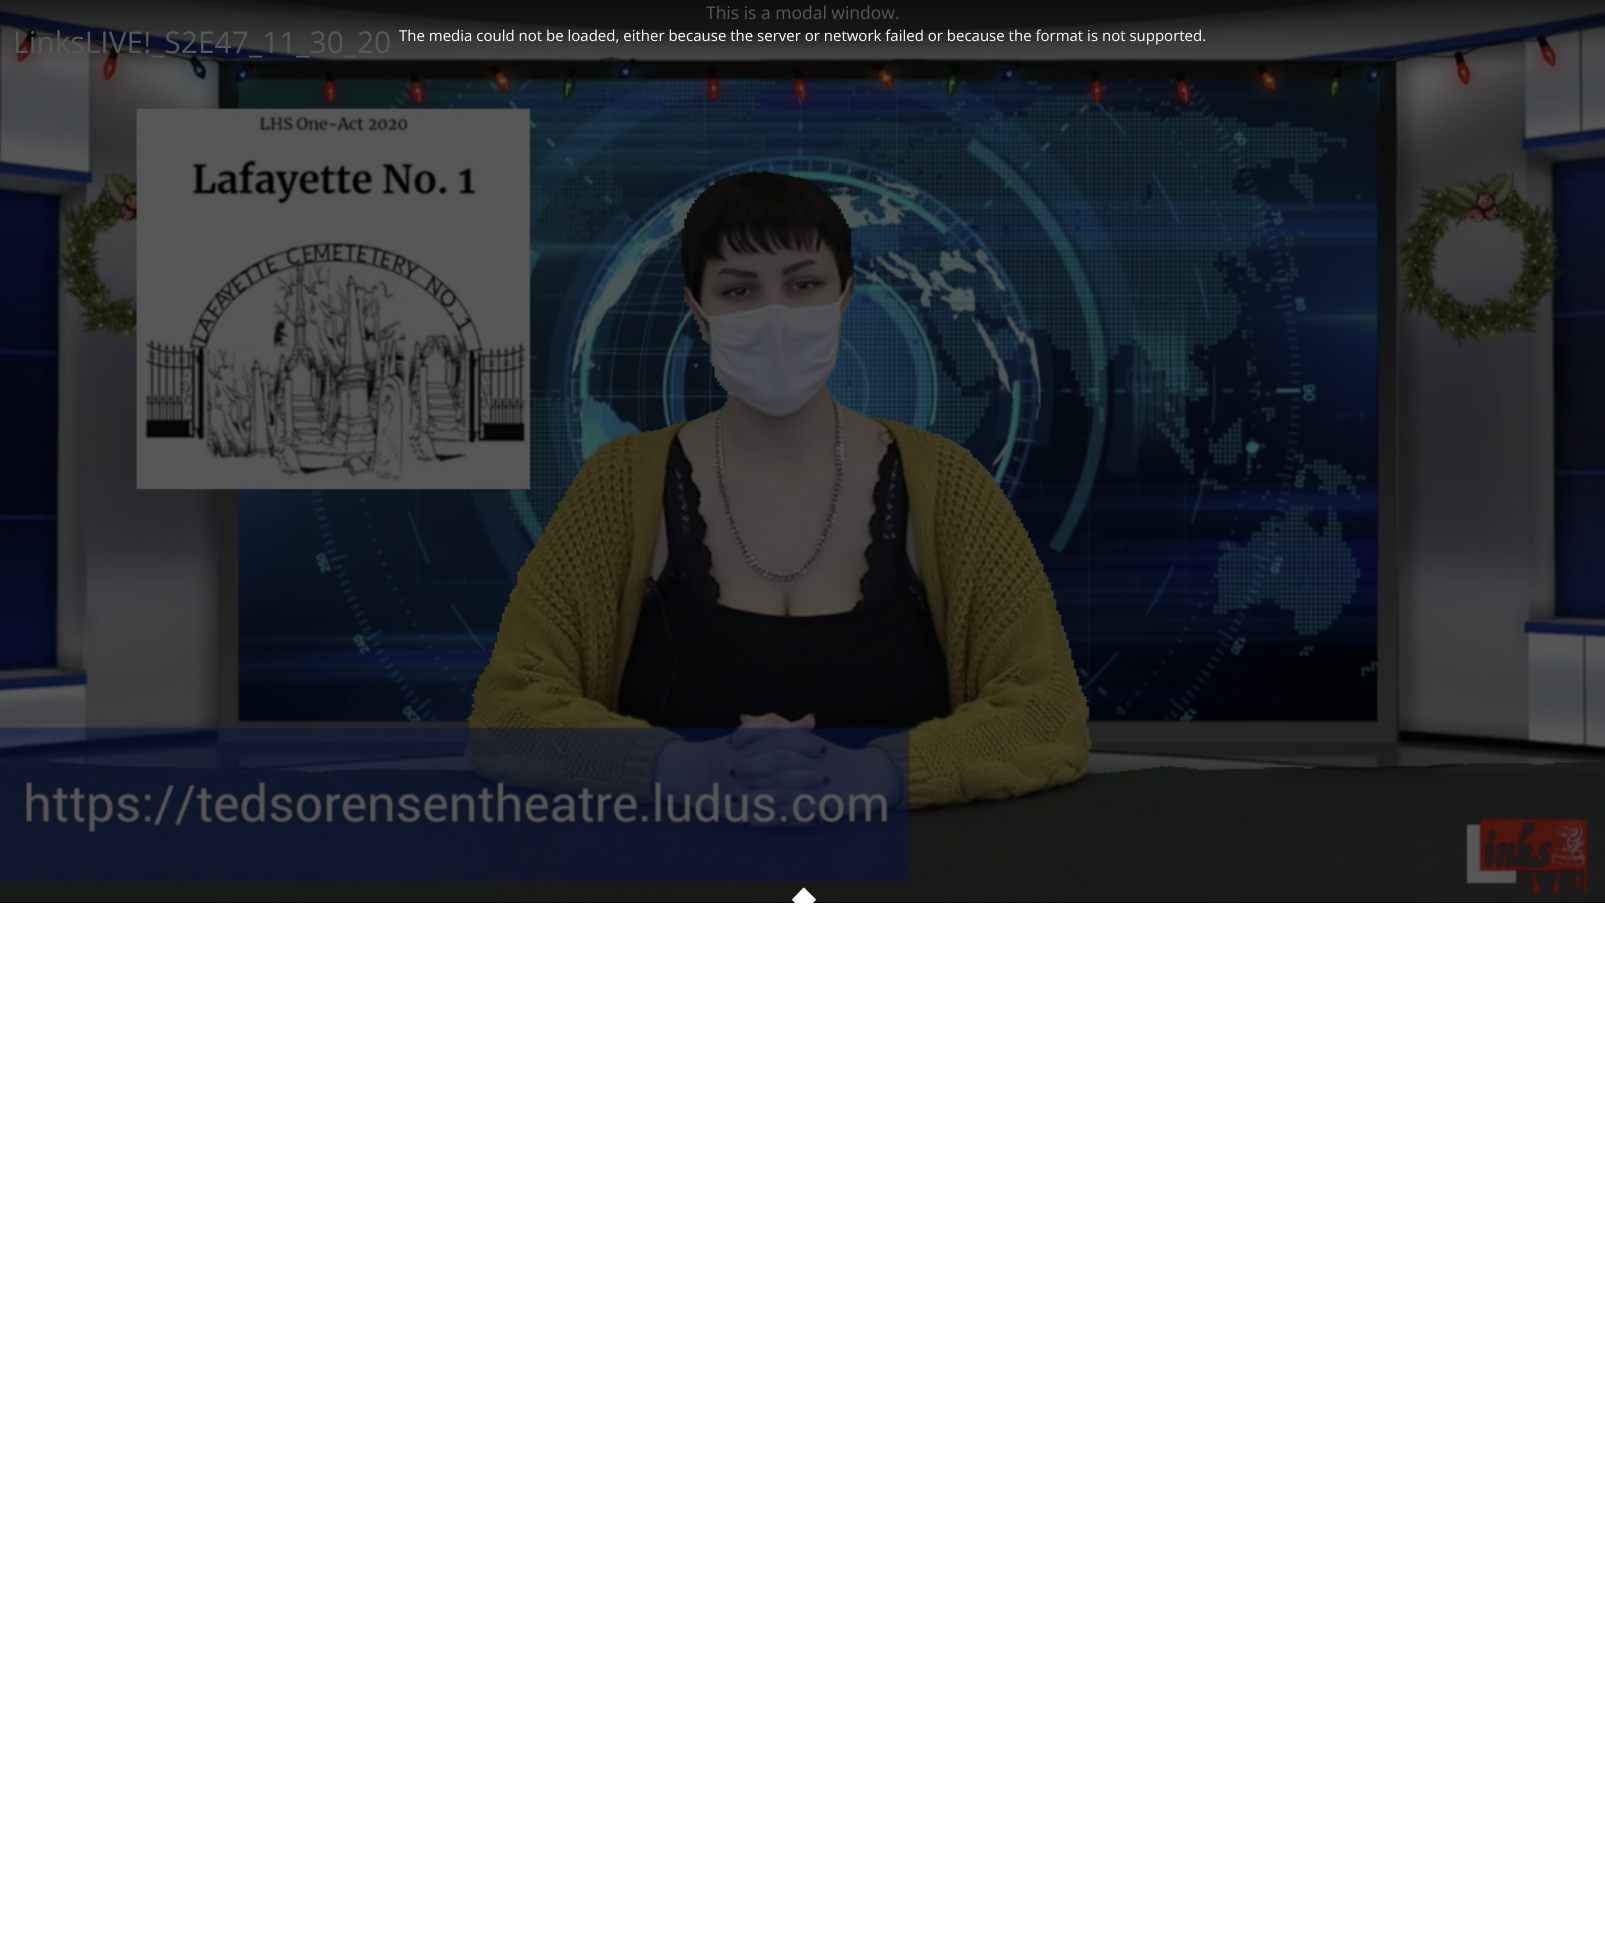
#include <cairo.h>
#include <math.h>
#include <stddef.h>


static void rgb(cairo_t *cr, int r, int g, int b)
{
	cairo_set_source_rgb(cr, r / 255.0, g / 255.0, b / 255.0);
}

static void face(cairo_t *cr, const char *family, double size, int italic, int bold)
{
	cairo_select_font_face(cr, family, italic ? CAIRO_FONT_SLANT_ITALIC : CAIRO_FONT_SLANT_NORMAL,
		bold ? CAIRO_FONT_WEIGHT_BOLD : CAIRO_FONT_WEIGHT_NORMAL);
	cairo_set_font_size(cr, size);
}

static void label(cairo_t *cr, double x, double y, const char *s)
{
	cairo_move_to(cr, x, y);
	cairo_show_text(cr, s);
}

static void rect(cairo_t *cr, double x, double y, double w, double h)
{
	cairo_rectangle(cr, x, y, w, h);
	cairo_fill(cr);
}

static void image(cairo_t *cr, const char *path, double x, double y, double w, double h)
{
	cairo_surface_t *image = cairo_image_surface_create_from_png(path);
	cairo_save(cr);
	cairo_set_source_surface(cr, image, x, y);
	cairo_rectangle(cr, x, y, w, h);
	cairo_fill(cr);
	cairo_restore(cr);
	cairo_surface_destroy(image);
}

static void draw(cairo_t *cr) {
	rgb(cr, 255, 255, 255);
	cairo_paint(cr);
	rgb(cr, 0, 0, 0);
	rect(cr, 0, 902, 1605, 1);
	image(cr, "image0.png", 0, 0, 1605, 903);
	face(cr, "Open Sans", 30, 0, 0);
	rgb(cr, 87, 87, 87);
	label(cr, 13, 53, "LinksLIVE!_S2E47_11_30_20");
	face(cr, "Open Sans", 17.5, 0, 0);
	label(cr, 706, 19, "This is a modal window.");
	image(cr, "image1.png", 0, 902, 1605, 1);
	cairo_save(cr);
	cairo_rectangle(cr, 0, 0, 1605, 903);
	cairo_clip(cr);
	rgb(cr, 255, 255, 255);
	cairo_new_path(cr);
	cairo_move_to(cr, 804.5, 888);
	cairo_line_to(cr, 815.5, 899);
	cairo_curve_to(cr, 816, 899.5, 816, 900, 815.5, 900.5);
	cairo_line_to(cr, 804.5, 911);
	cairo_curve_to(cr, 804, 911.5, 803.5, 911.5, 803, 911);
	cairo_line_to(cr, 792.5, 900.5);
	cairo_curve_to(cr, 792, 900, 792, 899.5, 792.5, 899);
	cairo_line_to(cr, 803, 888);
	cairo_curve_to(cr, 803.5, 887.5, 804, 887.5, 804.5, 888);
	cairo_close_path(cr);
	cairo_fill(cr);
	cairo_restore(cr);
	face(cr, "Open Sans", 15, 0, 0);
	rgb(cr, 255, 255, 255);
	label(cr, 399, 41, "The media could not be loaded, either because the server or network failed or because the format is not supported.");
}

int main(void) {
	cairo_surface_t *surface = cairo_image_surface_create(CAIRO_FORMAT_RGB24, 1605, 1958);
	cairo_t *cr = cairo_create(surface);
	cairo_font_options_t *options = cairo_font_options_create();
	cairo_font_options_set_hint_metrics(options, CAIRO_HINT_METRICS_OFF);
	cairo_font_options_set_hint_style(options, CAIRO_HINT_STYLE_NONE);
	cairo_set_font_options(cr, options);
	cairo_set_miter_limit(cr, 4);
	draw(cr);
	cairo_surface_write_to_png(surface, "render.png");
	cairo_font_options_destroy(options);
	cairo_destroy(cr);
	cairo_surface_destroy(surface);
	return 0;
}
